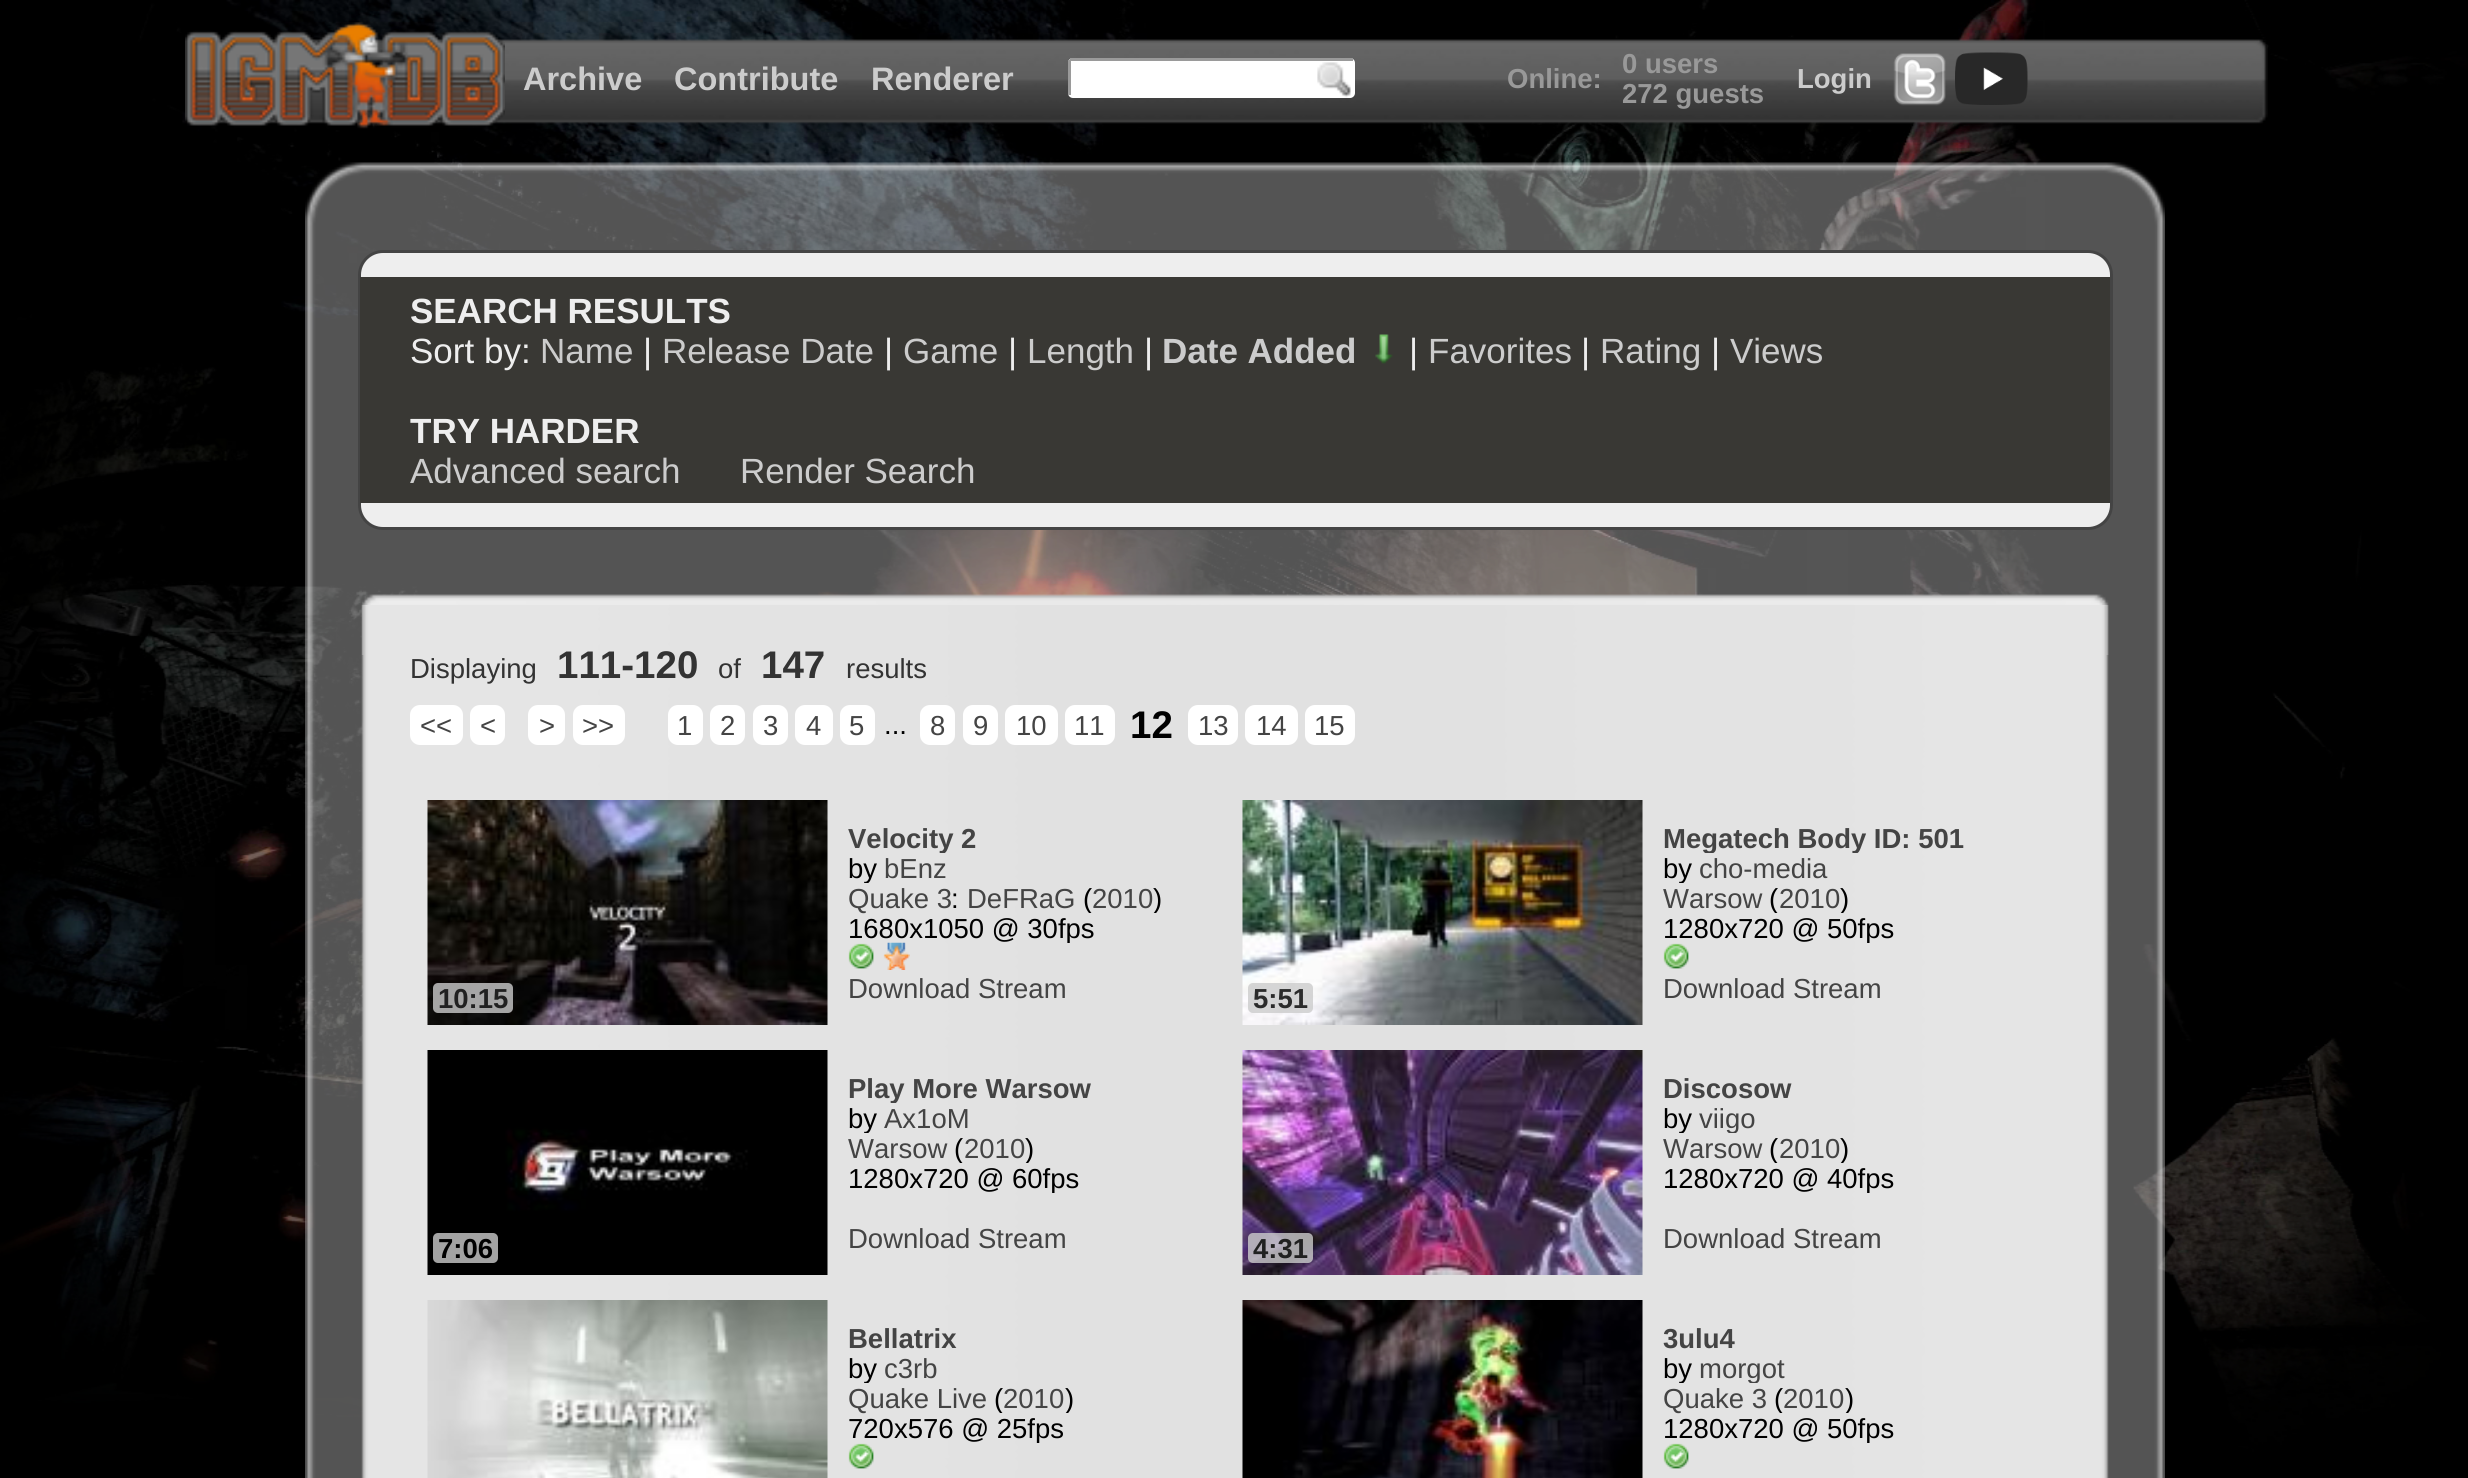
#include <cairo.h>
#include <math.h>
#include <stddef.h>


static void rgb(cairo_t *cr, int r, int g, int b)
{
	cairo_set_source_rgb(cr, r / 255.0, g / 255.0, b / 255.0);
}

static void face(cairo_t *cr, const char *family, double size, int italic, int bold)
{
	cairo_select_font_face(cr, family, italic ? CAIRO_FONT_SLANT_ITALIC : CAIRO_FONT_SLANT_NORMAL,
		bold ? CAIRO_FONT_WEIGHT_BOLD : CAIRO_FONT_WEIGHT_NORMAL);
	cairo_set_font_size(cr, size);
}

static void label(cairo_t *cr, double x, double y, const char *s)
{
	cairo_move_to(cr, x, y);
	cairo_show_text(cr, s);
}

static void rect(cairo_t *cr, double x, double y, double w, double h)
{
	cairo_rectangle(cr, x, y, w, h);
	cairo_fill(cr);
}

static void rrect(cairo_t *cr, double x, double y, double w, double h, double r)
{
	cairo_new_sub_path(cr);
	cairo_arc(cr, x + w - r, y + h - r, r, 0, M_PI / 2);
	cairo_arc(cr, x + r, y + h - r, r, M_PI / 2, M_PI);
	cairo_arc(cr, x + r, y + r, r, M_PI, 1.5 * M_PI);
	cairo_arc(cr, x + w - r, y + r, r, 1.5 * M_PI, 2 * M_PI);
	cairo_close_path(cr);
}

static void image(cairo_t *cr, const char *path, double x, double y, double w, double h)
{
	cairo_surface_t *image = cairo_image_surface_create_from_png(path);
	cairo_save(cr);
	cairo_set_source_surface(cr, image, x, y);
	cairo_rectangle(cr, x, y, w, h);
	cairo_fill(cr);
	cairo_restore(cr);
	cairo_surface_destroy(image);
}

static void draw(cairo_t *cr) {
	rgb(cr, 0, 0, 0);
	cairo_paint(cr);
	image(cr, "image0.png", 0, 0, 2468, 1470);
	image(cr, "image1.png", 196, 39, 2072, 103);
	image(cr, "image2.png", 185, 22, 320, 107);
	face(cr, "Liberation Sans", 32.5, 0, 1);
	rgb(cr, 204, 204, 204);
	label(cr, 523, 90, "Archive");
	label(cr, 674, 90, "Contribute");
	label(cr, 871, 90, "Renderer");
	rgb(cr, 255, 255, 255);
	rrect(cr, 1068, 58, 287, 40, 5);
	cairo_fill(cr);
	image(cr, "image3.png", 1317, 62, 34, 36);
	rgb(cr, 154, 154, 154);
	rect(cr, 1070, 58, 283, 3);
	rect(cr, 1068, 60, 3, 35);
	face(cr, "Liberation Sans", 27.5, 0, 1);
	rgb(cr, 153, 153, 153);
	label(cr, 1507, 88, "Online:");
	label(cr, 1622, 73, "0 users");
	label(cr, 1622, 103, "272 guests");
	rgb(cr, 204, 204, 204);
	label(cr, 1797, 88, "Login");
	image(cr, "image4.png", 1893, 53, 53, 53);
	image(cr, "image5.png", 1955, 52, 73, 53);
	image(cr, "image6.png", 305, 162, 1860, 88);
	image(cr, "image7.png", 305, 250, 1860, 1228);
	rgb(cr, 238, 238, 238);
	rrect(cr, 359.5, 251.5, 1752, 277, 23.5);
	cairo_fill_preserve(cr);
	rgb(cr, 68, 68, 68);
	cairo_set_line_width(cr, 3);
	cairo_stroke(cr);
	rgb(cr, 57, 56, 52);
	rect(cr, 360, 277, 1750, 226);
	face(cr, "Liberation Sans", 35, 0, 1);
	rgb(cr, 238, 238, 238);
	label(cr, 410, 323, "SEARCH RESULTS");
	face(cr, "Liberation Sans", 35, 0, 0);
	label(cr, 410, 363, "Sort by:");
	rgb(cr, 204, 204, 204);
	label(cr, 540, 363, "Name");
	rgb(cr, 238, 238, 238);
	label(cr, 643, 363, "|");
	rgb(cr, 204, 204, 204);
	label(cr, 662, 363, "Release Date");
	rgb(cr, 238, 238, 238);
	label(cr, 884, 363, "|");
	rgb(cr, 204, 204, 204);
	label(cr, 903, 363, "Game");
	rgb(cr, 238, 238, 238);
	label(cr, 1008, 363, "|");
	rgb(cr, 204, 204, 204);
	label(cr, 1027, 363, "Length");
	rgb(cr, 238, 238, 238);
	label(cr, 1144, 363, "|");
	face(cr, "Liberation Sans", 35, 0, 1);
	rgb(cr, 204, 204, 204);
	label(cr, 1162, 363, "Date Added");
	image(cr, "image8.png", 1375, 334, 18, 30);
	face(cr, "Liberation Sans", 35, 0, 0);
	rgb(cr, 238, 238, 238);
	label(cr, 1409, 363, "|");
	rgb(cr, 204, 204, 204);
	label(cr, 1428, 363, "Favorites");
	rgb(cr, 238, 238, 238);
	label(cr, 1581, 363, "|");
	rgb(cr, 204, 204, 204);
	label(cr, 1600, 363, "Rating");
	rgb(cr, 238, 238, 238);
	label(cr, 1711, 363, "|");
	rgb(cr, 204, 204, 204);
	label(cr, 1730, 363, "Views");
	face(cr, "Liberation Sans", 35, 0, 1);
	rgb(cr, 238, 238, 238);
	label(cr, 410, 443, "TRY HARDER");
	face(cr, "Liberation Sans", 35, 0, 0);
	rgb(cr, 204, 204, 204);
	label(cr, 410, 483, "Advanced search");
	label(cr, 740, 483, "Render Search");
	image(cr, "image9.png", 361, 594, 1748, 61);
	image(cr, "image10.png", 361, 605, 1748, 873);
	face(cr, "Liberation Sans", 27.5, 0, 0);
	rgb(cr, 51, 51, 51);
	label(cr, 410, 678, "Displaying");
	face(cr, "Liberation Sans", 38.5, 0, 1);
	label(cr, 557, 678, "111-120");
	face(cr, "Liberation Sans", 27.5, 0, 0);
	label(cr, 718, 678, "of");
	face(cr, "Liberation Sans", 38.5, 0, 1);
	label(cr, 761, 678, "147");
	face(cr, "Liberation Sans", 27.5, 0, 0);
	label(cr, 846, 678, "results");
	rgb(cr, 255, 255, 255);
	rrect(cr, 411.5, 706.5, 50, 37, 8.5);
	cairo_fill_preserve(cr);
	cairo_stroke(cr);
	rgb(cr, 68, 68, 68);
	label(cr, 420, 735, "<<");
	rgb(cr, 255, 255, 255);
	rrect(cr, 471.5, 706.5, 32, 37, 8.5);
	cairo_fill_preserve(cr);
	cairo_stroke(cr);
	rgb(cr, 68, 68, 68);
	label(cr, 480, 735, "<");
	rgb(cr, 255, 255, 255);
	rrect(cr, 529.5, 706.5, 34, 37, 8.5);
	cairo_fill_preserve(cr);
	cairo_stroke(cr);
	rgb(cr, 68, 68, 68);
	label(cr, 539, 735, ">");
	rgb(cr, 255, 255, 255);
	rrect(cr, 574.5, 706.5, 49, 37, 8.5);
	cairo_fill_preserve(cr);
	cairo_stroke(cr);
	rgb(cr, 68, 68, 68);
	label(cr, 582, 735, ">>");
	rgb(cr, 255, 255, 255);
	rrect(cr, 669.5, 706.5, 32, 37, 8.5);
	cairo_fill_preserve(cr);
	cairo_stroke(cr);
	rgb(cr, 68, 68, 68);
	label(cr, 677, 735, "1");
	rgb(cr, 255, 255, 255);
	rrect(cr, 711.5, 706.5, 32, 37, 8.5);
	cairo_fill_preserve(cr);
	cairo_stroke(cr);
	rgb(cr, 68, 68, 68);
	label(cr, 720, 735, "2");
	rgb(cr, 255, 255, 255);
	rrect(cr, 754.5, 706.5, 32, 37, 8.5);
	cairo_fill_preserve(cr);
	cairo_stroke(cr);
	rgb(cr, 68, 68, 68);
	label(cr, 763, 735, "3");
	rgb(cr, 255, 255, 255);
	rrect(cr, 796.5, 706.5, 35, 37, 8.5);
	cairo_fill_preserve(cr);
	cairo_stroke(cr);
	rgb(cr, 68, 68, 68);
	label(cr, 806, 735, "4");
	rgb(cr, 255, 255, 255);
	rrect(cr, 841.5, 706.5, 32, 37, 8.5);
	cairo_fill_preserve(cr);
	cairo_stroke(cr);
	rgb(cr, 68, 68, 68);
	label(cr, 849, 735, "5");
	rgb(cr, 0, 0, 0);
	label(cr, 884, 734, "...");
	rgb(cr, 255, 255, 255);
	rrect(cr, 921.5, 706.5, 32, 37, 8.5);
	cairo_fill_preserve(cr);
	cairo_stroke(cr);
	rgb(cr, 68, 68, 68);
	label(cr, 930, 735, "8");
	rgb(cr, 255, 255, 255);
	rrect(cr, 964.5, 706.5, 32, 37, 8.5);
	cairo_fill_preserve(cr);
	cairo_stroke(cr);
	rgb(cr, 68, 68, 68);
	label(cr, 973, 735, "9");
	rgb(cr, 255, 255, 255);
	rrect(cr, 1006.5, 706.5, 50, 37, 8.5);
	cairo_fill_preserve(cr);
	cairo_stroke(cr);
	rgb(cr, 68, 68, 68);
	label(cr, 1016, 735, "10");
	rgb(cr, 255, 255, 255);
	rrect(cr, 1066.5, 706.5, 47, 37, 8.5);
	cairo_fill_preserve(cr);
	cairo_stroke(cr);
	rgb(cr, 68, 68, 68);
	label(cr, 1074, 735, "11");
	face(cr, "Liberation Sans", 38.5, 0, 1);
	rgb(cr, 0, 0, 0);
	label(cr, 1130, 738, "12");
	rgb(cr, 255, 255, 255);
	rrect(cr, 1189.5, 706.5, 47, 37, 8.5);
	cairo_fill_preserve(cr);
	cairo_stroke(cr);
	face(cr, "Liberation Sans", 27.5, 0, 0);
	rgb(cr, 68, 68, 68);
	label(cr, 1198, 735, "13");
	rgb(cr, 255, 255, 255);
	rrect(cr, 1246.5, 706.5, 50, 37, 8.5);
	cairo_fill_preserve(cr);
	cairo_stroke(cr);
	rgb(cr, 68, 68, 68);
	label(cr, 1256, 735, "14");
	rgb(cr, 255, 255, 255);
	rrect(cr, 1306.5, 706.5, 47, 37, 8.5);
	cairo_fill_preserve(cr);
	cairo_stroke(cr);
	rgb(cr, 68, 68, 68);
	label(cr, 1314, 735, "15");
	image(cr, "image11.png", 427, 800, 401, 225);
	cairo_set_source_rgba(cr, 0.8, 0.8, 0.8, 0.8);
	rrect(cr, 433, 983, 80, 30, 5);
	cairo_fill(cr);
	face(cr, "Liberation Sans", 27.5, 0, 1);
	rgb(cr, 33, 33, 33);
	label(cr, 438, 1008, "10:15");
	cairo_save(cr);
	cairo_rectangle(cr, 848, 823, 372, 30);
	cairo_clip(cr);
	rgb(cr, 68, 68, 68);
	label(cr, 848, 848, "Velocity 2");
	cairo_restore(cr);
	cairo_save(cr);
	cairo_rectangle(cr, 848, 853, 372, 30);
	cairo_clip(cr);
	face(cr, "Liberation Sans", 27.5, 0, 0);
	rgb(cr, 0, 0, 0);
	label(cr, 848, 878, "by");
	cairo_restore(cr);
	face(cr, "Liberation Sans", 27.5, 0, 0);
	rgb(cr, 68, 68, 68);
	label(cr, 884, 878, "bEnz");
	label(cr, 848, 908, "Quake 3");
	rgb(cr, 0, 0, 0);
	label(cr, 951, 908, ":");
	rgb(cr, 68, 68, 68);
	label(cr, 967, 908, "DeFRaG");
	cairo_save(cr);
	cairo_rectangle(cr, 848, 883, 372, 30);
	cairo_clip(cr);
	rgb(cr, 0, 0, 0);
	label(cr, 1083, 908, "(");
	cairo_restore(cr);
	label(cr, 1092, 908, "2010");
	cairo_save(cr);
	cairo_rectangle(cr, 848, 883, 372, 30);
	cairo_clip(cr);
	rgb(cr, 0, 0, 0);
	label(cr, 1153, 908, ")");
	cairo_restore(cr);
	cairo_save(cr);
	cairo_rectangle(cr, 848, 913, 372, 30);
	cairo_clip(cr);
	rgb(cr, 0, 0, 0);
	label(cr, 848, 938, "1680x1050 @ 30fps");
	cairo_restore(cr);
	image(cr, "image12.png", 848, 943, 26, 26);
	image(cr, "image13.png", 883, 942, 27, 28);
	label(cr, 848, 998, "Download Stream");
	image(cr, "image14.png", 1242, 800, 401, 225);
	cairo_set_source_rgba(cr, 0.8, 0.8, 0.8, 0.8);
	rrect(cr, 1248, 983, 65, 30, 5);
	cairo_fill(cr);
	face(cr, "Liberation Sans", 27.5, 0, 1);
	rgb(cr, 43, 43, 43);
	label(cr, 1253, 1008, "5:51");
	cairo_save(cr);
	cairo_rectangle(cr, 1663, 823, 372, 30);
	cairo_clip(cr);
	rgb(cr, 68, 68, 68);
	label(cr, 1663, 848, "Megatech Body ID: 501");
	cairo_restore(cr);
	cairo_save(cr);
	cairo_rectangle(cr, 1663, 853, 372, 30);
	cairo_clip(cr);
	face(cr, "Liberation Sans", 27.5, 0, 0);
	rgb(cr, 0, 0, 0);
	label(cr, 1663, 878, "by");
	cairo_restore(cr);
	face(cr, "Liberation Sans", 27.5, 0, 0);
	rgb(cr, 68, 68, 68);
	label(cr, 1699, 878, "cho-media");
	label(cr, 1663, 908, "Warsow");
	cairo_save(cr);
	cairo_rectangle(cr, 1663, 883, 372, 30);
	cairo_clip(cr);
	rgb(cr, 0, 0, 0);
	label(cr, 1769, 908, "(");
	cairo_restore(cr);
	label(cr, 1779, 908, "2010");
	cairo_save(cr);
	cairo_rectangle(cr, 1663, 883, 372, 30);
	cairo_clip(cr);
	rgb(cr, 0, 0, 0);
	label(cr, 1840, 908, ")");
	cairo_restore(cr);
	cairo_save(cr);
	cairo_rectangle(cr, 1663, 913, 372, 30);
	cairo_clip(cr);
	rgb(cr, 0, 0, 0);
	label(cr, 1663, 938, "1280x720 @ 50fps");
	cairo_restore(cr);
	image(cr, "image12.png", 1663, 943, 26, 26);
	label(cr, 1663, 998, "Download Stream");
	image(cr, "image15.png", 427, 1050, 401, 225);
	rgb(cr, 163, 163, 163);
	rrect(cr, 433, 1233, 65, 30, 5);
	cairo_fill(cr);
	face(cr, "Liberation Sans", 27.5, 0, 1);
	rgb(cr, 0, 0, 0);
	label(cr, 438, 1258, "7:06");
	cairo_save(cr);
	cairo_rectangle(cr, 848, 1073, 372, 30);
	cairo_clip(cr);
	rgb(cr, 68, 68, 68);
	label(cr, 848, 1098, "Play More Warsow");
	cairo_restore(cr);
	cairo_save(cr);
	cairo_rectangle(cr, 848, 1103, 372, 30);
	cairo_clip(cr);
	face(cr, "Liberation Sans", 27.5, 0, 0);
	label(cr, 848, 1128, "by");
	cairo_restore(cr);
	face(cr, "Liberation Sans", 27.5, 0, 0);
	rgb(cr, 68, 68, 68);
	label(cr, 884, 1128, "Ax1oM");
	label(cr, 848, 1158, "Warsow");
	cairo_save(cr);
	cairo_rectangle(cr, 848, 1133, 372, 30);
	cairo_clip(cr);
	rgb(cr, 0, 0, 0);
	label(cr, 954, 1158, "(");
	cairo_restore(cr);
	label(cr, 964, 1158, "2010");
	cairo_save(cr);
	cairo_rectangle(cr, 848, 1133, 372, 30);
	cairo_clip(cr);
	rgb(cr, 0, 0, 0);
	label(cr, 1025, 1158, ")");
	cairo_restore(cr);
	cairo_save(cr);
	cairo_rectangle(cr, 848, 1163, 372, 30);
	cairo_clip(cr);
	rgb(cr, 0, 0, 0);
	label(cr, 848, 1188, "1280x720 @ 60fps");
	cairo_restore(cr);
	label(cr, 848, 1248, "Download Stream");
	image(cr, "image16.png", 1242, 1050, 401, 225);
	cairo_set_source_rgba(cr, 0.8, 0.8, 0.8, 0.8);
	rrect(cr, 1248, 1233, 65, 30, 5);
	cairo_fill(cr);
	face(cr, "Liberation Sans", 27.5, 0, 1);
	rgb(cr, 33, 33, 33);
	label(cr, 1253, 1258, "4:31");
	rgb(cr, 68, 68, 68);
	label(cr, 1663, 1098, "Discosow");
	cairo_save(cr);
	cairo_rectangle(cr, 1663, 1103, 372, 30);
	cairo_clip(cr);
	face(cr, "Liberation Sans", 27.5, 0, 0);
	rgb(cr, 0, 0, 0);
	label(cr, 1663, 1128, "by");
	rgb(cr, 68, 68, 68);
	label(cr, 1699, 1128, "viigo");
	cairo_restore(cr);
	face(cr, "Liberation Sans", 27.5, 0, 0);
	label(cr, 1663, 1158, "Warsow");
	cairo_save(cr);
	cairo_rectangle(cr, 1663, 1133, 372, 30);
	cairo_clip(cr);
	rgb(cr, 0, 0, 0);
	label(cr, 1769, 1158, "(");
	cairo_restore(cr);
	label(cr, 1779, 1158, "2010");
	cairo_save(cr);
	cairo_rectangle(cr, 1663, 1133, 372, 30);
	cairo_clip(cr);
	rgb(cr, 0, 0, 0);
	label(cr, 1840, 1158, ")");
	cairo_restore(cr);
	cairo_save(cr);
	cairo_rectangle(cr, 1663, 1163, 372, 30);
	cairo_clip(cr);
	rgb(cr, 0, 0, 0);
	label(cr, 1663, 1188, "1280x720 @ 40fps");
	cairo_restore(cr);
	label(cr, 1663, 1248, "Download Stream");
	image(cr, "image17.png", 427, 1300, 401, 178);
	face(cr, "Liberation Sans", 27.5, 0, 1);
	label(cr, 848, 1348, "Bellatrix");
	cairo_save(cr);
	cairo_rectangle(cr, 848, 1353, 372, 30);
	cairo_clip(cr);
	face(cr, "Liberation Sans", 27.5, 0, 0);
	rgb(cr, 0, 0, 0);
	label(cr, 848, 1378, "by");
	cairo_restore(cr);
	face(cr, "Liberation Sans", 27.5, 0, 0);
	label(cr, 884, 1378, "c3rb");
	label(cr, 848, 1408, "Quake Live");
	cairo_save(cr);
	cairo_rectangle(cr, 848, 1383, 372, 30);
	cairo_clip(cr);
	rgb(cr, 0, 0, 0);
	label(cr, 994, 1408, "(");
	cairo_restore(cr);
	label(cr, 1003, 1408, "2010");
	cairo_save(cr);
	cairo_rectangle(cr, 848, 1383, 372, 30);
	cairo_clip(cr);
	rgb(cr, 0, 0, 0);
	label(cr, 1065, 1408, ")");
	cairo_restore(cr);
	cairo_save(cr);
	cairo_rectangle(cr, 848, 1413, 372, 30);
	cairo_clip(cr);
	rgb(cr, 0, 0, 0);
	label(cr, 848, 1438, "720x576 @ 25fps");
	cairo_restore(cr);
	image(cr, "image12.png", 848, 1443, 26, 26);
	image(cr, "image18.png", 1242, 1300, 401, 178);
	face(cr, "Liberation Sans", 27.5, 0, 1);
	label(cr, 1663, 1348, "3ulu4");
	cairo_save(cr);
	cairo_rectangle(cr, 1663, 1353, 372, 30);
	cairo_clip(cr);
	face(cr, "Liberation Sans", 27.5, 0, 0);
	rgb(cr, 0, 0, 0);
	label(cr, 1663, 1378, "by");
	rgb(cr, 68, 68, 68);
	label(cr, 1699, 1378, "morgot");
	cairo_restore(cr);
	face(cr, "Liberation Sans", 27.5, 0, 0);
	label(cr, 1663, 1408, "Quake 3");
	cairo_save(cr);
	cairo_rectangle(cr, 1663, 1383, 372, 30);
	cairo_clip(cr);
	rgb(cr, 0, 0, 0);
	label(cr, 1774, 1408, "(");
	cairo_restore(cr);
	label(cr, 1783, 1408, "2010");
	cairo_save(cr);
	cairo_rectangle(cr, 1663, 1383, 372, 30);
	cairo_clip(cr);
	rgb(cr, 0, 0, 0);
	label(cr, 1845, 1408, ")");
	cairo_restore(cr);
	cairo_save(cr);
	cairo_rectangle(cr, 1663, 1413, 372, 30);
	cairo_clip(cr);
	rgb(cr, 0, 0, 0);
	label(cr, 1663, 1438, "1280x720 @ 50fps");
	cairo_restore(cr);
	image(cr, "image12.png", 1663, 1443, 26, 26);
}

int main(void) {
	cairo_surface_t *surface = cairo_image_surface_create(CAIRO_FORMAT_RGB24, 2468, 1478);
	cairo_t *cr = cairo_create(surface);
	cairo_font_options_t *options = cairo_font_options_create();
	cairo_font_options_set_hint_metrics(options, CAIRO_HINT_METRICS_OFF);
	cairo_font_options_set_hint_style(options, CAIRO_HINT_STYLE_NONE);
	cairo_set_font_options(cr, options);
	cairo_set_miter_limit(cr, 4);
	draw(cr);
	cairo_surface_write_to_png(surface, "render.png");
	cairo_font_options_destroy(options);
	cairo_destroy(cr);
	cairo_surface_destroy(surface);
	return 0;
}
